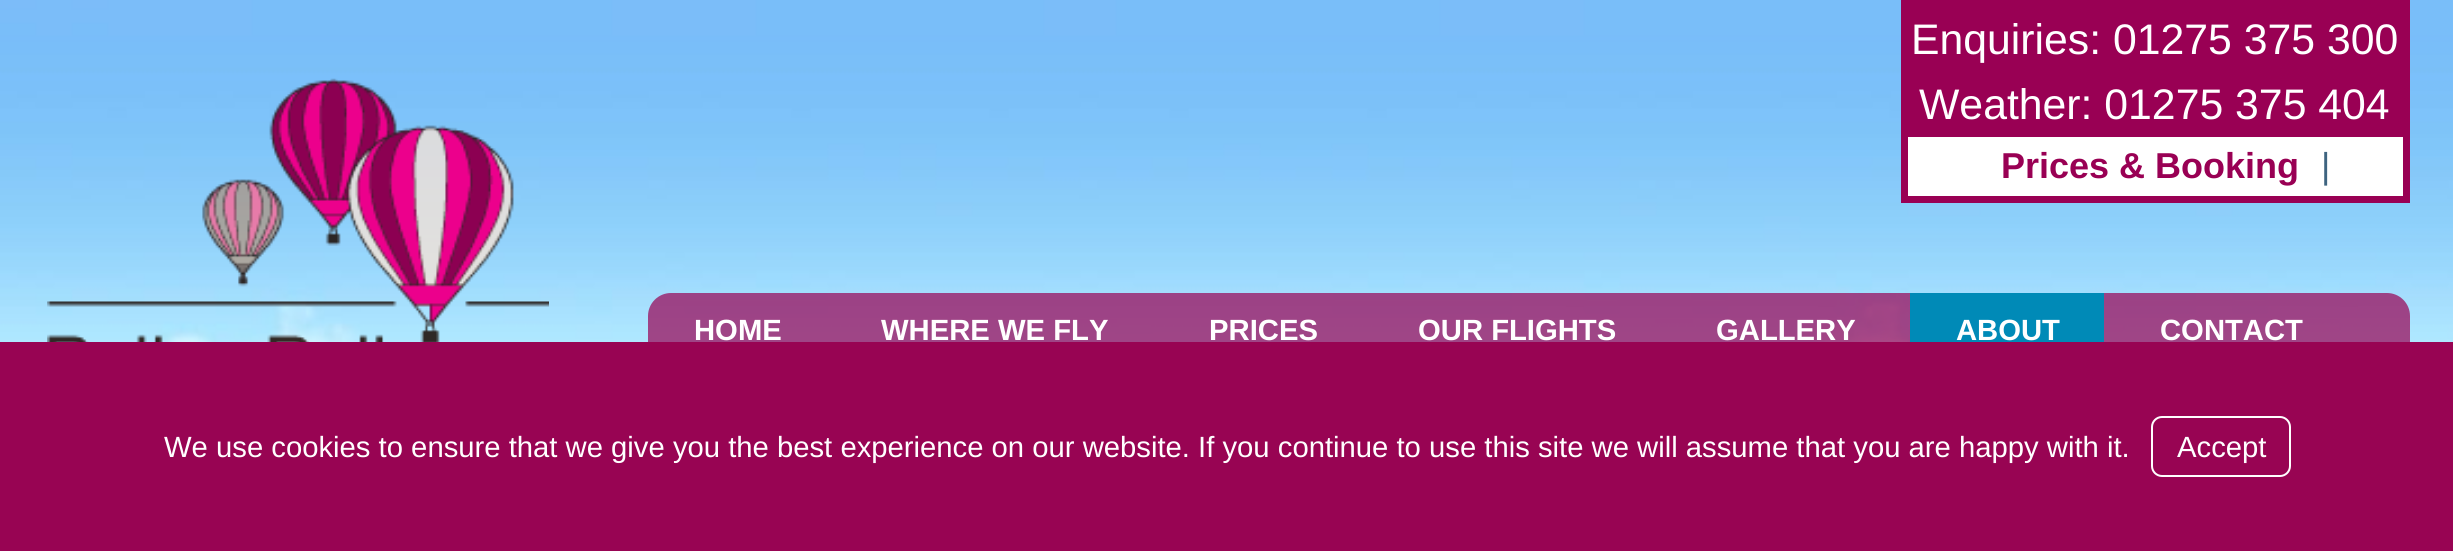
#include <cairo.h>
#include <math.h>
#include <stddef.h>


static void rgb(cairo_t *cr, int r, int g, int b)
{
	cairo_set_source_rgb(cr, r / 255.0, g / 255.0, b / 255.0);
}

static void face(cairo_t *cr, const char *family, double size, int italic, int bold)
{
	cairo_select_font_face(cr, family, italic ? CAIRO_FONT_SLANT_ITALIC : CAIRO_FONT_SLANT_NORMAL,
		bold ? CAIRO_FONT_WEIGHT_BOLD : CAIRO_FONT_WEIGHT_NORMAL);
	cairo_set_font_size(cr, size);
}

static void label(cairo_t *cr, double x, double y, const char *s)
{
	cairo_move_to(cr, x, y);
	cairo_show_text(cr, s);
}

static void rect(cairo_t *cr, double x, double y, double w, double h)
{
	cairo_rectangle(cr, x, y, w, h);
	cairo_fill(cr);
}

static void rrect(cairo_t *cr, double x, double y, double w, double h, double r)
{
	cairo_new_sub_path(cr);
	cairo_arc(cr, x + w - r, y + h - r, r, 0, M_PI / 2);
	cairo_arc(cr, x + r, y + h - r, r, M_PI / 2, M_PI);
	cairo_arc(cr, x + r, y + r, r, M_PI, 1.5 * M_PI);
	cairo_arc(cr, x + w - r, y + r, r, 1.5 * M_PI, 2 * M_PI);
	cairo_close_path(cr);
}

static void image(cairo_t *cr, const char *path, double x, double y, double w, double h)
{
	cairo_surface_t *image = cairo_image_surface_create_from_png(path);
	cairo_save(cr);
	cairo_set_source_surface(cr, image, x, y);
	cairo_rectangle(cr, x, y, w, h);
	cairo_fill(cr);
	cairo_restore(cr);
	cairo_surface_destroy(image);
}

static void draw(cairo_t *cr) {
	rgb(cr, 255, 255, 255);
	cairo_paint(cr);
	image(cr, "image0.png", 0, 0, 2453, 342);
	rgb(cr, 255, 255, 255);
	rect(cr, 1908, 137, 495, 59);
	cairo_rectangle(cr, 1904.5, 3.5, 502, 196);
	rgb(cr, 153, 0, 84);
	cairo_set_line_width(cr, 7);
	cairo_stroke(cr);
	rect(cr, 1908, 7, 495, 130);
	face(cr, "Liberation Sans", 42.75, 0, 0);
	rgb(cr, 255, 255, 255);
	label(cr, 1911, 54, "Enquiries: 01275 375 300");
	label(cr, 1919, 119, "Weather: 01275 375 404");
	face(cr, "Liberation Sans", 36, 0, 1);
	rgb(cr, 153, 0, 84);
	label(cr, 2001, 178, "Prices & Booking");
	face(cr, "Liberation Sans", 36, 0, 0);
	rgb(cr, 62, 100, 128);
	label(cr, 2321, 178, "|");
	image(cr, "image1.png", 47, 78, 502, 264);
	cairo_set_source_rgba(cr, 0.6, 0, 0.329, 0.7);
	rrect(cr, 648, 293, 1762, 148, 23);
	cairo_fill(cr);
	face(cr, "Liberation Sans", 29.25, 0, 1);
	rgb(cr, 255, 255, 255);
	label(cr, 694, 340, "HOME");
	label(cr, 881, 340, "WHERE WE FLY");
	label(cr, 1209, 340, "PRICES");
	label(cr, 1418, 340, "OUR FLIGHTS");
	label(cr, 1716, 340, "GALLERY");
	rgb(cr, 0, 138, 183);
	rect(cr, 1910, 293, 194, 49);
	rgb(cr, 255, 255, 255);
	label(cr, 1956, 340, "ABOUT");
	label(cr, 2160, 340, "CONTACT");
	rgb(cr, 152, 4, 83);
	rect(cr, 0, 342, 2453, 209);
	face(cr, "Liberation Sans", 29.25, 0, 0);
	rgb(cr, 255, 255, 255);
	label(cr, 164, 457, "We use cookies to ensure that we give you the best experience on our website. If you continue to use this site we will assume that you are happy with it.");
	rrect(cr, 2152, 417, 138, 59, 10);
	cairo_set_line_width(cr, 2);
	cairo_stroke(cr);
	label(cr, 2177, 457, "Accept");
}

int main(void) {
	cairo_surface_t *surface = cairo_image_surface_create(CAIRO_FORMAT_RGB24, 2453, 551);
	cairo_t *cr = cairo_create(surface);
	cairo_font_options_t *options = cairo_font_options_create();
	cairo_font_options_set_hint_metrics(options, CAIRO_HINT_METRICS_OFF);
	cairo_font_options_set_hint_style(options, CAIRO_HINT_STYLE_NONE);
	cairo_set_font_options(cr, options);
	cairo_set_miter_limit(cr, 4);
	draw(cr);
	cairo_surface_write_to_png(surface, "render.png");
	cairo_font_options_destroy(options);
	cairo_destroy(cr);
	cairo_surface_destroy(surface);
	return 0;
}
